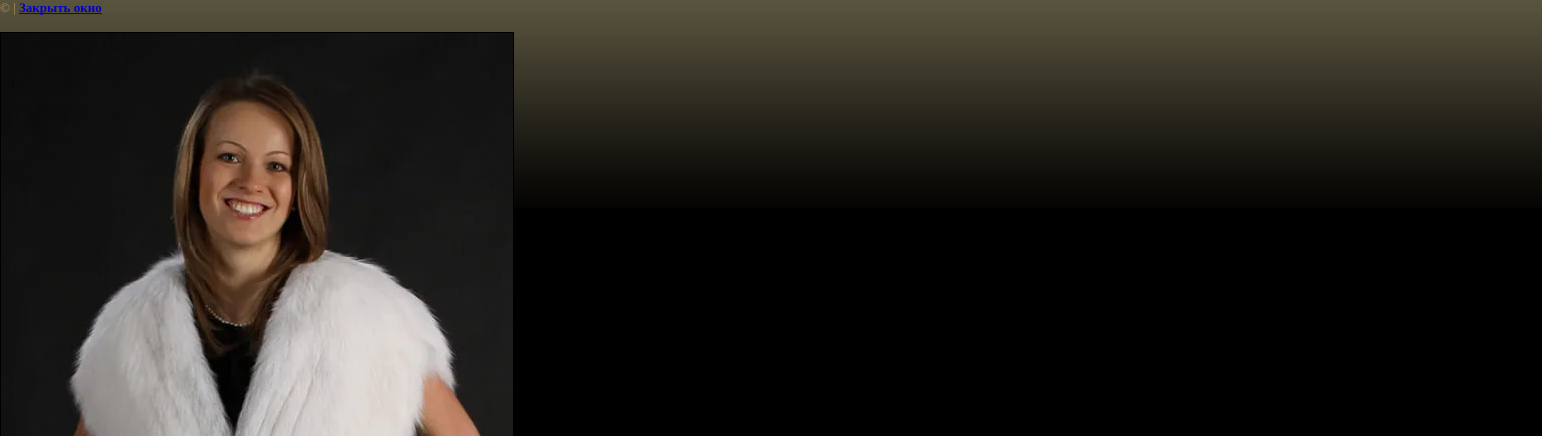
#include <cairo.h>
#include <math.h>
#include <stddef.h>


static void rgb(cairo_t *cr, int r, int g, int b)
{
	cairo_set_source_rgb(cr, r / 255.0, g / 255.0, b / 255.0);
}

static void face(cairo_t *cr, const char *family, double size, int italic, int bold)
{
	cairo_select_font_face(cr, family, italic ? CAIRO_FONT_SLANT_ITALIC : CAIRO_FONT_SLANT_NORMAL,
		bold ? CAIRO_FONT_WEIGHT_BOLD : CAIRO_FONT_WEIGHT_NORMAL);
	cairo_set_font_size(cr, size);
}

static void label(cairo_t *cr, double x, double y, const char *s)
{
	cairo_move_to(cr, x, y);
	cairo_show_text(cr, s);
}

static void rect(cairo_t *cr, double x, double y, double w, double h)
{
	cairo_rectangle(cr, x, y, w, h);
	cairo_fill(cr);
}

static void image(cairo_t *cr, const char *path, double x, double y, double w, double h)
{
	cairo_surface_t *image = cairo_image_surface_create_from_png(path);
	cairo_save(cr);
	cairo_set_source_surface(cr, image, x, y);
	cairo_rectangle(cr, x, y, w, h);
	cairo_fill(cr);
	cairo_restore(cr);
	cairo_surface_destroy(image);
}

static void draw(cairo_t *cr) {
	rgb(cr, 0, 0, 0);
	cairo_paint(cr);
	image(cr, "image0.png", 0, 0, 1542, 208);
	face(cr, "Liberation Serif", 13, 0, 0);
	rgb(cr, 176, 148, 88);
	label(cr, 0, 12, "© |");
	rgb(cr, 0, 0, 204);
	rect(cr, 19, 13, 83, 1);
	face(cr, "Liberation Serif", 13, 0, 1);
	label(cr, 19, 12, "Закрыть окно");
	cairo_rectangle(cr, 0.5, 32.5, 513, 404);
	rgb(cr, 0, 0, 0);
	cairo_set_line_width(cr, 1);
	cairo_stroke(cr);
	image(cr, "image1.png", 1, 33, 512, 403);
}

int main(void) {
	cairo_surface_t *surface = cairo_image_surface_create(CAIRO_FORMAT_RGB24, 1542, 436);
	cairo_t *cr = cairo_create(surface);
	cairo_font_options_t *options = cairo_font_options_create();
	cairo_font_options_set_hint_metrics(options, CAIRO_HINT_METRICS_OFF);
	cairo_font_options_set_hint_style(options, CAIRO_HINT_STYLE_NONE);
	cairo_set_font_options(cr, options);
	cairo_set_miter_limit(cr, 4);
	draw(cr);
	cairo_surface_write_to_png(surface, "render.png");
	cairo_font_options_destroy(options);
	cairo_destroy(cr);
	cairo_surface_destroy(surface);
	return 0;
}
